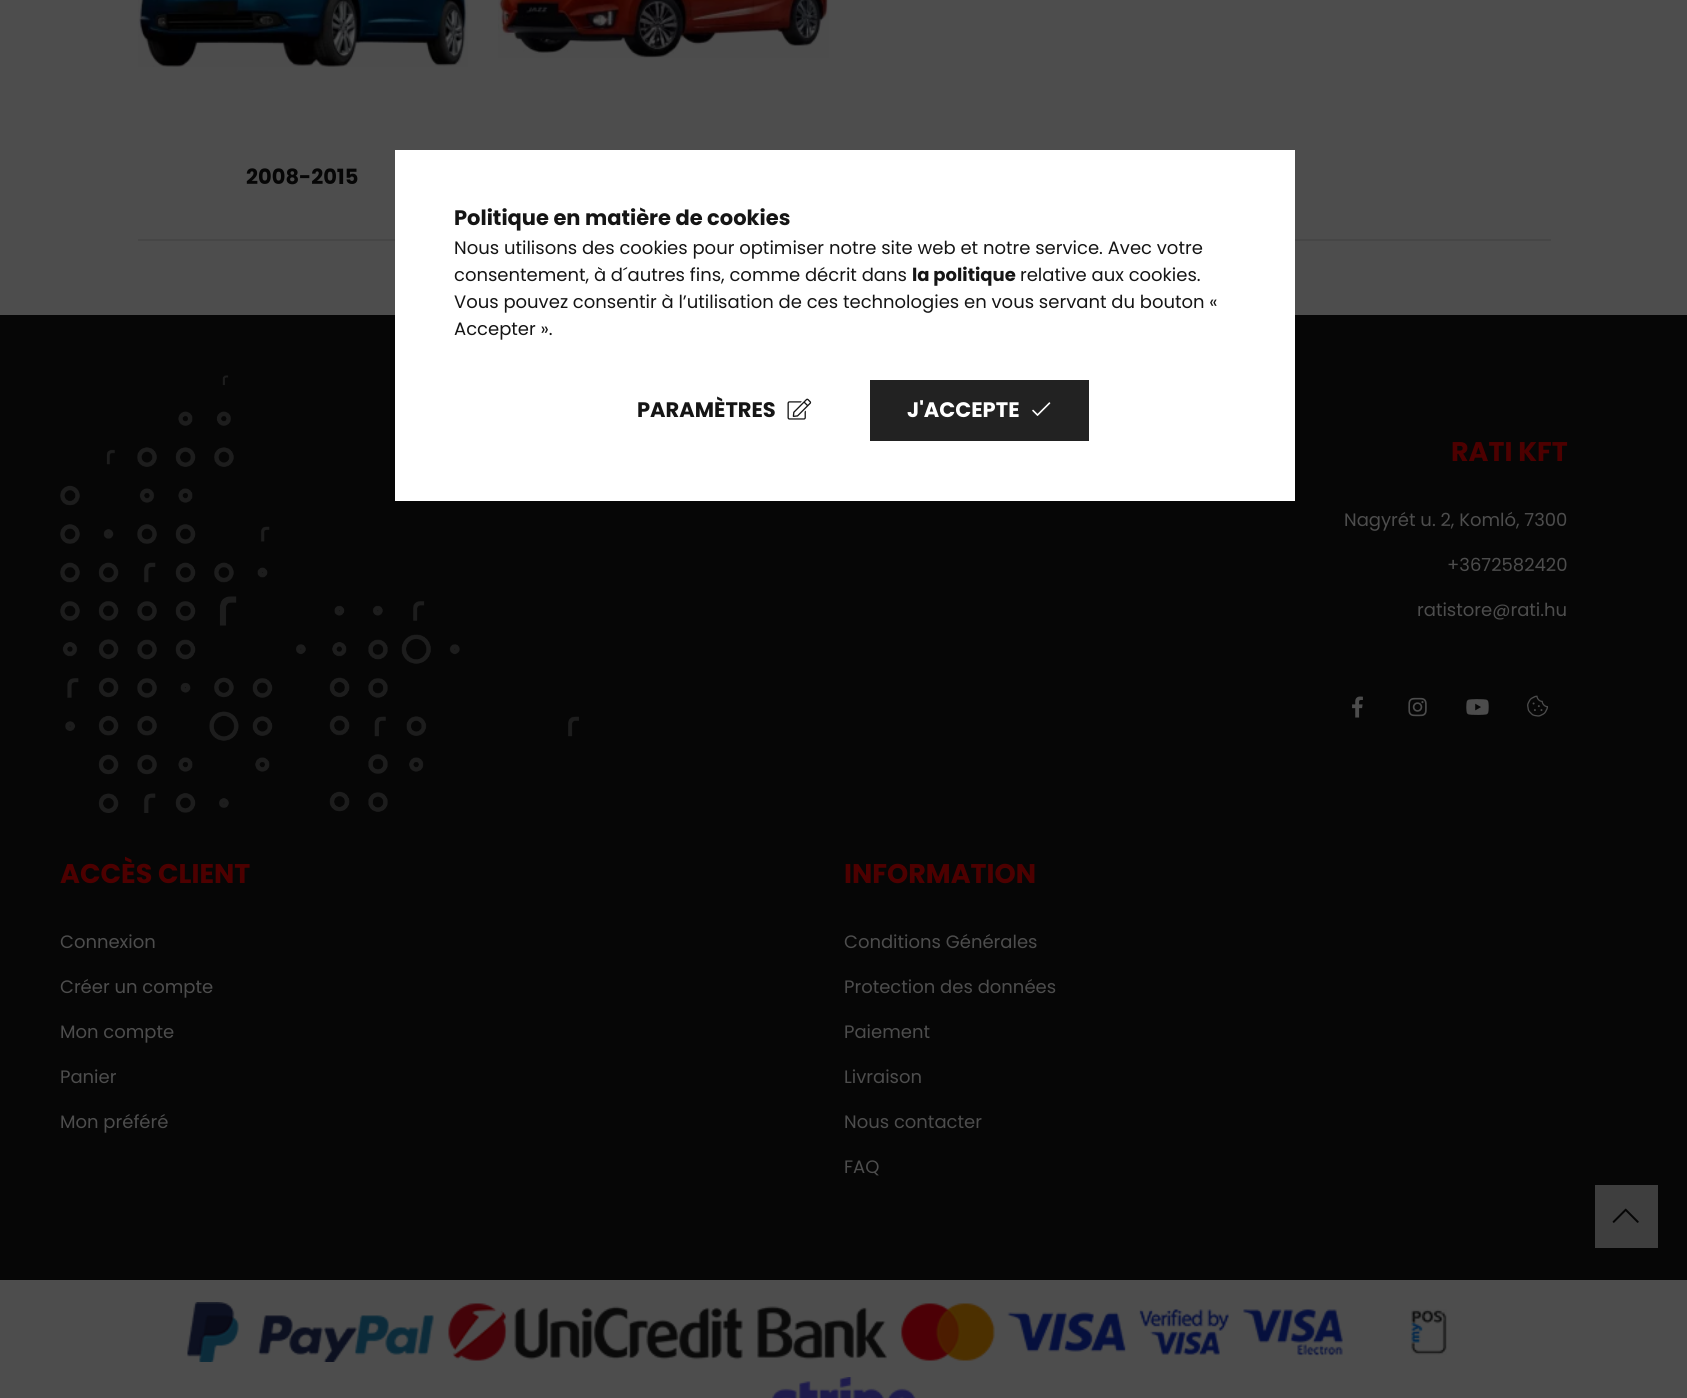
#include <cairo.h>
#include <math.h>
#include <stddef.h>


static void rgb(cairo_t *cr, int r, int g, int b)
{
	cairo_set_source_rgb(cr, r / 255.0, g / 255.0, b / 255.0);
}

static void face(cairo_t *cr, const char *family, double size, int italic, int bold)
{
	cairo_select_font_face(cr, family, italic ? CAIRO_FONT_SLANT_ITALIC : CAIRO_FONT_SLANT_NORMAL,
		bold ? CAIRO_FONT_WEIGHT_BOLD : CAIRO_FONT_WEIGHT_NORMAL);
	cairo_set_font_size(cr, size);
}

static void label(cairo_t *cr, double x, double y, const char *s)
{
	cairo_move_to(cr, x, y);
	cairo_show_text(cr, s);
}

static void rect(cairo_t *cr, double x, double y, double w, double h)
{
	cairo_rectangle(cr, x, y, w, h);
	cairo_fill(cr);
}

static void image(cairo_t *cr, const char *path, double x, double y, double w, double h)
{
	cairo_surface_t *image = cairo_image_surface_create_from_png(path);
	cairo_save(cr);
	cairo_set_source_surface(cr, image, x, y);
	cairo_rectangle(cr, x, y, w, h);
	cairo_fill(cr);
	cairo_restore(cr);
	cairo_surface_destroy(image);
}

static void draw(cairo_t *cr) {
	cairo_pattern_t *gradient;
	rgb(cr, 77, 77, 77);
	cairo_paint(cr);
	rgb(cr, 70, 70, 70);
	rect(cr, 138, 239, 1413, 2);
	image(cr, "image0.png", 498, 0, 331, 58);
	image(cr, "image1.png", 138, 0, 330, 67);
	face(cr, "Poppins", 21, 0, 1);
	rgb(cr, 6, 6, 6);
	label(cr, 246, 184, "2008-2015");
	rect(cr, 0, 315, 1687, 965);
	image(cr, "image2.png", 60, 375, 519, 438);
	face(cr, "Poppins", 27, 0, 1);
	rgb(cr, 77, 0, 0);
	label(cr, 1451, 461, "RATI KFT");
	face(cr, "Poppins", 18, 0, 0);
	rgb(cr, 77, 77, 77);
	label(cr, 1344, 526, "Nagyrét u. 2, Komló, 7300");
	label(cr, 1447, 571, "+3672582420");
	label(cr, 1417, 616, "ratistore@rati.hu");
	image(cr, "image3.png", 1352, 696, 11, 22);
	image(cr, "image4.png", 1408, 697, 19, 20);
	image(cr, "image5.png", 1466, 699, 23, 16);
	image(cr, "image6.png", 1527, 695, 21, 22);
	face(cr, "Poppins", 27, 0, 1);
	rgb(cr, 77, 0, 0);
	label(cr, 60, 883, "ACCÈS CLIENT");
	face(cr, "Poppins", 18, 0, 0);
	rgb(cr, 77, 77, 77);
	label(cr, 60, 948, "Connexion");
	label(cr, 60, 993, "Créer un compte");
	label(cr, 60, 1038, "Mon compte");
	label(cr, 60, 1083, "Panier");
	label(cr, 60, 1128, "Mon préféré");
	face(cr, "Poppins", 27, 0, 1);
	rgb(cr, 77, 0, 0);
	label(cr, 844, 883, "INFORMATION");
	face(cr, "Poppins", 18, 0, 0);
	rgb(cr, 77, 77, 77);
	label(cr, 844, 948, "Conditions Générales");
	label(cr, 844, 993, "Protection des données");
	label(cr, 844, 1038, "Paiement");
	label(cr, 844, 1083, "Livraison");
	label(cr, 844, 1128, "Nous contacter");
	label(cr, 844, 1173, "FAQ");
	image(cr, "image7.png", 187, 1302, 247, 60);
	image(cr, "image8.png", 448, 1303, 895, 58);
	image(cr, "image9.png", 1411, 1309, 36, 46);
	image(cr, "image10.png", 772, 1377, 144, 21);
	rgb(cr, 255, 255, 255);
	rect(cr, 395, 150, 900, 351);
	face(cr, "Poppins", 21, 0, 1);
	rgb(cr, 21, 21, 21);
	label(cr, 454, 225, "Politique en matière de cookies");
	face(cr, "Poppins", 18, 0, 0);
	label(cr, 454, 254, "Nous utilisons des cookies pour optimiser notre site web et notre service. Avec votre");
	label(cr, 454, 281, "consentement, à d´autres fins, comme décrit dans");
	face(cr, "Poppins", 18, 0, 1);
	label(cr, 912, 281, "la politique");
	face(cr, "Poppins", 18, 0, 0);
	label(cr, 1020, 281, "relative aux cookies.");
	label(cr, 454, 308, "Vous pouvez consentir à l’utilisation de ces technologies en vous servant du bouton «");
	label(cr, 454, 335, "Accepter ».");
	face(cr, "Poppins", 21, 0, 1);
	label(cr, 637, 417, "PARAMÈTRES");
	image(cr, "image11.png", 787, 398, 25, 22);
	gradient = cairo_pattern_create_linear(432, 410, 1089, 410);
	cairo_pattern_add_color_stop_rgba(gradient, 0, 0.082, 0.082, 0.082, 1);
	cairo_pattern_add_color_stop_rgba(gradient, 0.33, 0.082, 0.082, 0.082, 1);
	cairo_pattern_add_color_stop_rgba(gradient, 0.67, 0.133, 0.133, 0.133, 1);
	cairo_pattern_add_color_stop_rgba(gradient, 1, 0.133, 0.133, 0.133, 1);
	cairo_set_source(cr, gradient);
	cairo_pattern_destroy(gradient);
	rect(cr, 870, 380, 219, 61);
	rgb(cr, 255, 255, 255);
	label(cr, 907, 417, "J'ACCEPTE");
	image(cr, "image12.png", 1032, 402, 19, 14);
	rgb(cr, 62, 62, 62);
	rect(cr, 1595, 1185, 63, 63);
	image(cr, "image13.png", 1612, 1208, 27, 15);
}

int main(void) {
	cairo_surface_t *surface = cairo_image_surface_create(CAIRO_FORMAT_RGB24, 1687, 1398);
	cairo_t *cr = cairo_create(surface);
	cairo_font_options_t *options = cairo_font_options_create();
	cairo_font_options_set_hint_metrics(options, CAIRO_HINT_METRICS_OFF);
	cairo_font_options_set_hint_style(options, CAIRO_HINT_STYLE_NONE);
	cairo_set_font_options(cr, options);
	cairo_set_miter_limit(cr, 4);
	draw(cr);
	cairo_surface_write_to_png(surface, "render.png");
	cairo_font_options_destroy(options);
	cairo_destroy(cr);
	cairo_surface_destroy(surface);
	return 0;
}
